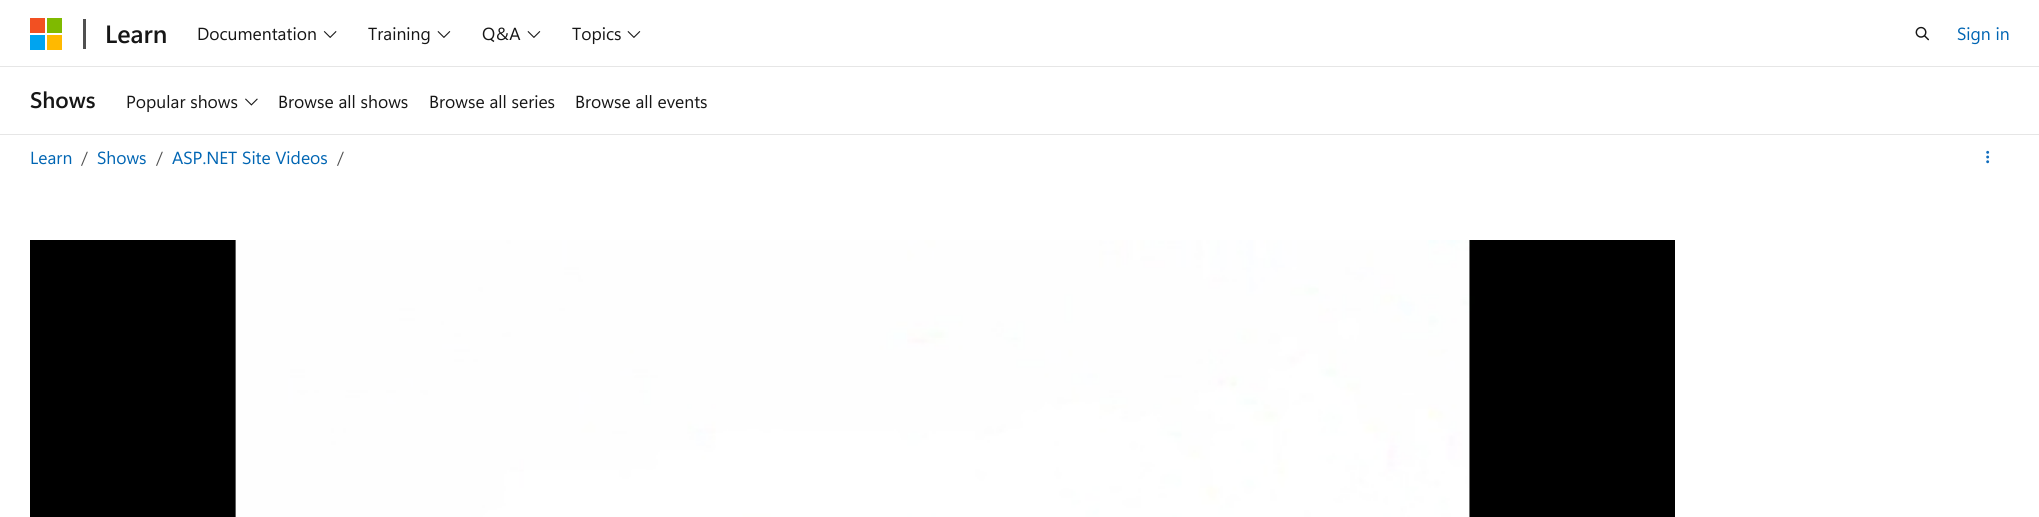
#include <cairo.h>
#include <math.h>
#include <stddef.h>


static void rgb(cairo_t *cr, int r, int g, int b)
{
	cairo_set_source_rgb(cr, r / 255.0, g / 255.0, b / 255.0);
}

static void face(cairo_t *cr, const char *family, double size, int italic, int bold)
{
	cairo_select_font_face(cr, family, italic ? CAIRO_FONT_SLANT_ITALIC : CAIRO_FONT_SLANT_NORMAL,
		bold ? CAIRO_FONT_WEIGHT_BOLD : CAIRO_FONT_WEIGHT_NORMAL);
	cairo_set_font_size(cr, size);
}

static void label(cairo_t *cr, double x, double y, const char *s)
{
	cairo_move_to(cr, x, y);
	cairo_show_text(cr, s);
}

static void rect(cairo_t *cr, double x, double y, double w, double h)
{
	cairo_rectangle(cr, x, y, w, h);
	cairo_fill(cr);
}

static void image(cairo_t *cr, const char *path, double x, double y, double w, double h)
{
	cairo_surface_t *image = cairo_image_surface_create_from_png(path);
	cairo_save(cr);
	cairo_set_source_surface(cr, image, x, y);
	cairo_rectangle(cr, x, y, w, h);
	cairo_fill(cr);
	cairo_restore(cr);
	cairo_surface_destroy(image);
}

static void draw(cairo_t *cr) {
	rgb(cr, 255, 255, 255);
	cairo_paint(cr);
	rgb(cr, 230, 230, 230);
	rect(cr, 0, 66, 2039, 1);
	rgb(cr, 242, 80, 34);
	rect(cr, 30, 18, 15, 15);
	rgb(cr, 127, 186, 0);
	rect(cr, 47, 18, 15, 15);
	rgb(cr, 0, 164, 239);
	rect(cr, 30, 35, 15, 15);
	rgb(cr, 255, 185, 0);
	rect(cr, 47, 35, 15, 15);
	rgb(cr, 80, 80, 80);
	rect(cr, 83, 19, 3, 30);
	face(cr, "Segoe UI SemiBold", 25, 0, 0);
	rgb(cr, 22, 22, 22);
	label(cr, 105, 43, "Learn");
	face(cr, "Segoe UI", 17.5, 0, 0);
	label(cr, 197, 40, "Documentation");
	image(cr, "image0.png", 323, 31, 14, 7);
	label(cr, 368, 40, "Training");
	image(cr, "image1.png", 437, 31, 14, 7);
	label(cr, 482, 40, "Q&A");
	image(cr, "image1.png", 527, 31, 14, 7);
	label(cr, 572, 40, "Topics");
	image(cr, "image1.png", 627, 31, 14, 7);
	image(cr, "image2.png", 1915, 26, 14, 15);
	rgb(cr, 0, 101, 179);
	label(cr, 1957, 40, "Sign in");
	rgb(cr, 230, 230, 230);
	rect(cr, 0, 134, 2039, 1);
	face(cr, "Segoe UI SemiBold", 22.5, 0, 0);
	rgb(cr, 22, 22, 22);
	label(cr, 30, 108, "Shows");
	face(cr, "Segoe UI", 17.5, 0, 0);
	label(cr, 126, 108, "Popular shows");
	image(cr, "image3.png", 245, 98, 13, 8);
	label(cr, 278, 108, "Browse all shows");
	label(cr, 429, 108, "Browse all series");
	label(cr, 575, 108, "Browse all events");
	rgb(cr, 0, 101, 179);
	label(cr, 30, 164, "Learn");
	rgb(cr, 80, 80, 80);
	label(cr, 81, 164, "/");
	rgb(cr, 0, 101, 179);
	label(cr, 97, 164, "Shows");
	rgb(cr, 80, 80, 80);
	label(cr, 156, 164, "/");
	rgb(cr, 0, 101, 179);
	label(cr, 172, 164, "ASP.NET Site Videos");
	rgb(cr, 80, 80, 80);
	label(cr, 337, 164, "/");
	image(cr, "image4.png", 1986, 150, 4, 14);
	image(cr, "image5.png", 30, 240, 1645, 277);
}

int main(void) {
	cairo_surface_t *surface = cairo_image_surface_create(CAIRO_FORMAT_RGB24, 2039, 517);
	cairo_t *cr = cairo_create(surface);
	cairo_font_options_t *options = cairo_font_options_create();
	cairo_font_options_set_hint_metrics(options, CAIRO_HINT_METRICS_OFF);
	cairo_font_options_set_hint_style(options, CAIRO_HINT_STYLE_NONE);
	cairo_set_font_options(cr, options);
	cairo_set_miter_limit(cr, 4);
	draw(cr);
	cairo_surface_write_to_png(surface, "render.png");
	cairo_font_options_destroy(options);
	cairo_destroy(cr);
	cairo_surface_destroy(surface);
	return 0;
}
